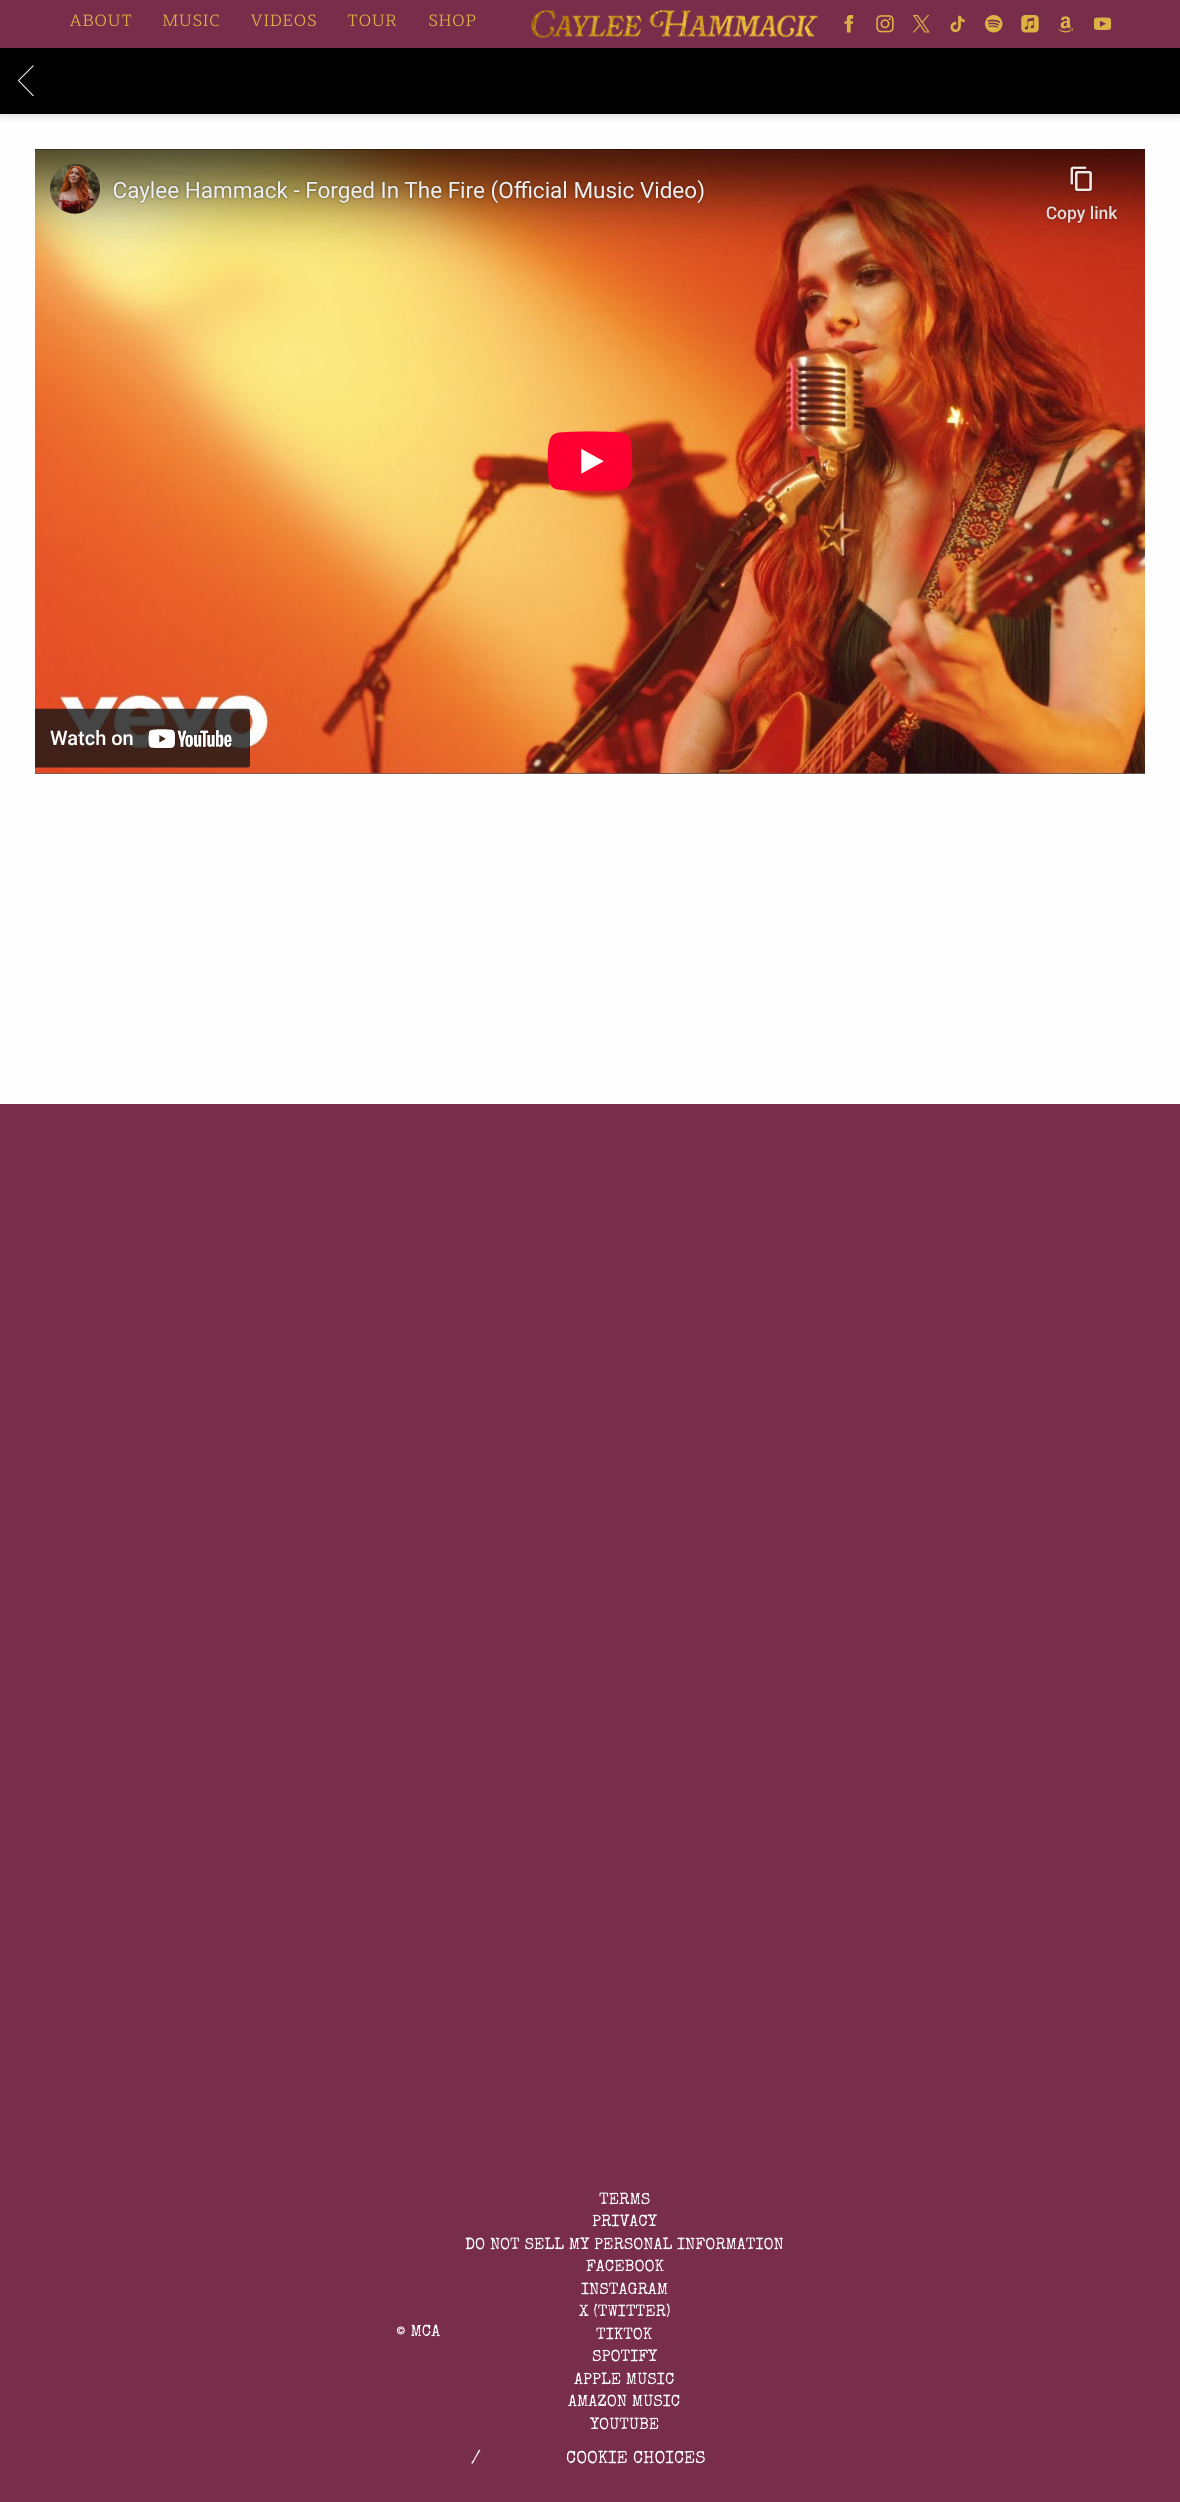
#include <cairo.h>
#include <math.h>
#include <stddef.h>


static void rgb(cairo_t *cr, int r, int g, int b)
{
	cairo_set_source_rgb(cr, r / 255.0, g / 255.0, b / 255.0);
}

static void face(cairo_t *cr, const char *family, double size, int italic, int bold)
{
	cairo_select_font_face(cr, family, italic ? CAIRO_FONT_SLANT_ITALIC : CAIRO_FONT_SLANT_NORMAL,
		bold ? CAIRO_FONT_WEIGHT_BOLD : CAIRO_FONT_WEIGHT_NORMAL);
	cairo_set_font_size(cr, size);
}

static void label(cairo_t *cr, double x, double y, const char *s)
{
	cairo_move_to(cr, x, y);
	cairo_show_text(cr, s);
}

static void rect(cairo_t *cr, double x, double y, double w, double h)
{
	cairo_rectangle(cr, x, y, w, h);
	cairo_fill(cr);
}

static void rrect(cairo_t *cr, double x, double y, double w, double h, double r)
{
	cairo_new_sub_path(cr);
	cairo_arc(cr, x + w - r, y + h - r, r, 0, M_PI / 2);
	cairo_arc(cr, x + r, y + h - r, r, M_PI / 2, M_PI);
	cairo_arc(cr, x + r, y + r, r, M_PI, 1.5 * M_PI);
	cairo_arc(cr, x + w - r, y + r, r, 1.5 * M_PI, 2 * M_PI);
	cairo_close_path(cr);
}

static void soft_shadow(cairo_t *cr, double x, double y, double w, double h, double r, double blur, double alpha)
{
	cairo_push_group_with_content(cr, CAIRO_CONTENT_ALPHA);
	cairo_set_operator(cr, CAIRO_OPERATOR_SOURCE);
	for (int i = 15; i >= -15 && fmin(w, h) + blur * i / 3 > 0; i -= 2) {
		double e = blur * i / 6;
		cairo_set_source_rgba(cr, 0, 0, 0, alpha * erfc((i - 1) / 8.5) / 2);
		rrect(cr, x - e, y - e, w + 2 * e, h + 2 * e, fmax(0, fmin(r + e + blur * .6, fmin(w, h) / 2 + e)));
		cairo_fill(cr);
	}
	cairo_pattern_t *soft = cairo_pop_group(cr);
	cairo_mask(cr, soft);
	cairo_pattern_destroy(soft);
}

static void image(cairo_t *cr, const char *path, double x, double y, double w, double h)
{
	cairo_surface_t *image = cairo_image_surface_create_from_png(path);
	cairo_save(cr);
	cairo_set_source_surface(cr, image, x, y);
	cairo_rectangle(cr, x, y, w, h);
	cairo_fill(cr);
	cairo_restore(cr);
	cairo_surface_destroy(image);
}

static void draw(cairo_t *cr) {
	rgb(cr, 120, 45, 75);
	cairo_paint(cr);
	face(cr, "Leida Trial", 16.25, 0, 0);
	rgb(cr, 220, 177, 70);
	label(cr, 69, 26, "ABOUT");
	label(cr, 162, 26, "MUSIC");
	label(cr, 250, 26, "VIDEOS");
	label(cr, 347, 26, "TOUR");
	label(cr, 428, 26, "SHOP");
	image(cr, "image0.png", 531, 10, 287, 28);
	image(cr, "image1.png", 844, 15, 10, 18);
	image(cr, "image2.png", 876, 15, 18, 18);
	image(cr, "image3.png", 913, 15, 17, 18);
	image(cr, "image4.png", 950, 15, 15, 18);
	image(cr, "image5.png", 985, 15, 18, 18);
	image(cr, "image6.png", 1021, 15, 18, 18);
	image(cr, "image7.png", 1058, 16, 16, 17);
	image(cr, "image8.png", 1094, 17, 17, 13);
	rgb(cr, 254, 254, 254);
	rect(cr, 0, 114, 1180, 990);
	rgb(cr, 0, 0, 0);
	soft_shadow(cr, 0, 51, 1180, 67, 0, 3, 0.1);
	rgb(cr, 0, 0, 0);
	rect(cr, 0, 48, 1180, 66);
	cairo_new_path(cr);
	cairo_move_to(cr, 33.5, 96);
	cairo_line_to(cr, 18.5, 80.5);
	cairo_line_to(cr, 33.5, 65.5);
	rgb(cr, 255, 255, 255);
	cairo_set_line_width(cr, 1);
	cairo_stroke(cr);
	image(cr, "image9.png", 35, 149, 1110, 625);
	face(cr, "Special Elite", 16.25, 0, 0);
	label(cr, 396, 2336, "© MCA");
	label(cr, 599, 2204, "TERMS");
	label(cr, 592, 2226, "PRIVACY");
	label(cr, 465, 2249, "DO NOT SELL MY PERSONAL INFORMATION");
	label(cr, 586, 2271, "FACEBOOK");
	label(cr, 581, 2294, "INSTAGRAM");
	label(cr, 579, 2316, "X (TWITTER)");
	label(cr, 596, 2339, "TIKTOK");
	label(cr, 592, 2361, "SPOTIFY");
	label(cr, 574, 2384, "APPLE MUSIC");
	label(cr, 568, 2406, "AMAZON MUSIC");
	label(cr, 590, 2429, "YOUTUBE");
	face(cr, "Special Elite", 17.5, 0, 0);
	label(cr, 471, 2463, "/");
	label(cr, 566, 2463, "COOKIE CHOICES");
}

int main(void) {
	cairo_surface_t *surface = cairo_image_surface_create(CAIRO_FORMAT_RGB24, 1180, 2502);
	cairo_t *cr = cairo_create(surface);
	cairo_font_options_t *options = cairo_font_options_create();
	cairo_font_options_set_hint_metrics(options, CAIRO_HINT_METRICS_OFF);
	cairo_font_options_set_hint_style(options, CAIRO_HINT_STYLE_NONE);
	cairo_set_font_options(cr, options);
	cairo_set_miter_limit(cr, 4);
	draw(cr);
	cairo_surface_write_to_png(surface, "render.png");
	cairo_font_options_destroy(options);
	cairo_destroy(cr);
	cairo_surface_destroy(surface);
	return 0;
}
